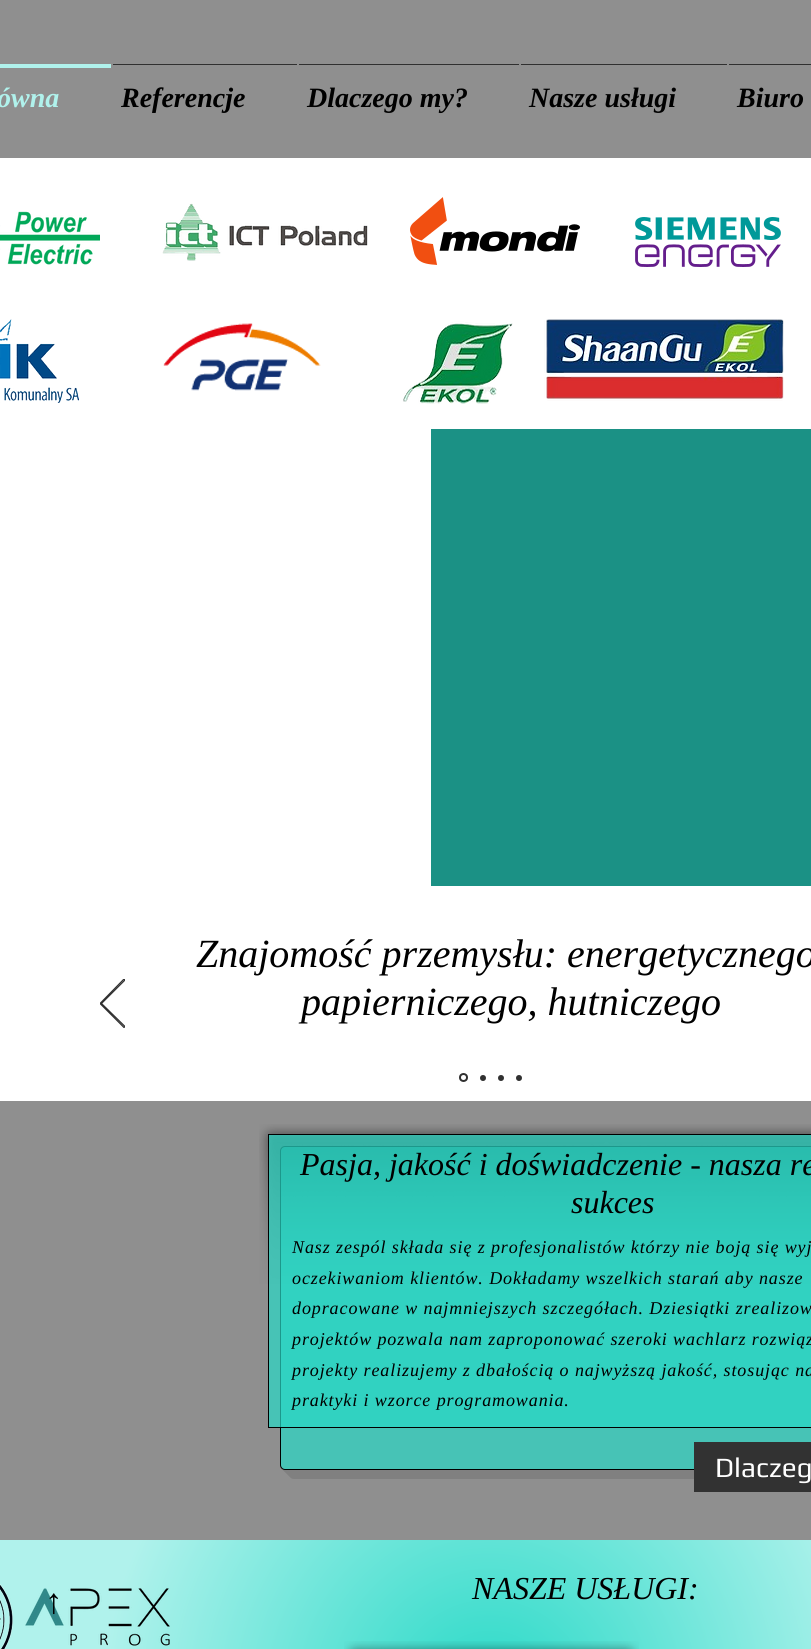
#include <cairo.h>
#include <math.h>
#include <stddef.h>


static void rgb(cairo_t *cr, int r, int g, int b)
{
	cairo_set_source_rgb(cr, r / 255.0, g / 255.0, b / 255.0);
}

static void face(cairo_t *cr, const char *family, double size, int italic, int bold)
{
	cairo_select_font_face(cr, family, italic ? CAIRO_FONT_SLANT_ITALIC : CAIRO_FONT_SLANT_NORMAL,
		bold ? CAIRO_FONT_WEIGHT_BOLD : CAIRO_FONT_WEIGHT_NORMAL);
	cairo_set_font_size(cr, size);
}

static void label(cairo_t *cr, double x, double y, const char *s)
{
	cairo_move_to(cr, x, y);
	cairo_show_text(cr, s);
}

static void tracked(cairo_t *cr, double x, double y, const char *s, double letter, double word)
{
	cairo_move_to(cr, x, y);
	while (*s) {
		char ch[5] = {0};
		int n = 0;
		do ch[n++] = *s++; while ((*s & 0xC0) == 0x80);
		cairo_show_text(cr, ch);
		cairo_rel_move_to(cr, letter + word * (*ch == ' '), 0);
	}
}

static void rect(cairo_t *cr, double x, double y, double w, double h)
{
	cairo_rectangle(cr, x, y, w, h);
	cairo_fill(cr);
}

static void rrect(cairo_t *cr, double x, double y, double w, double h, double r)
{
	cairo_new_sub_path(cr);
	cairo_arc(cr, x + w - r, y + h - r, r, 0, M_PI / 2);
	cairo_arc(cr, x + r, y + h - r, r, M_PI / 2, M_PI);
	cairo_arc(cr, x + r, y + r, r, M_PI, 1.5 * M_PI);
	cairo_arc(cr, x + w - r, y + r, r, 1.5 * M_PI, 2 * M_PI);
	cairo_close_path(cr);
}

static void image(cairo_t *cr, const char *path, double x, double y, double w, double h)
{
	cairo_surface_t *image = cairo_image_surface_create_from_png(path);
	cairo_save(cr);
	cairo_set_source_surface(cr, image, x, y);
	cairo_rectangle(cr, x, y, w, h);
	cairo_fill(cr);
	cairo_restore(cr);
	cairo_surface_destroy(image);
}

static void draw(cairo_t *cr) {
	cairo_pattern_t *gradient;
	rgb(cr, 255, 255, 255);
	cairo_paint(cr);
	rgb(cr, 143, 143, 143);
	rect(cr, 0, 0, 811, 158);
	rgb(cr, 176, 242, 236);
	rect(cr, 0, 64, 111, 4);
	face(cr, "Liberation Serif", 28, 1, 1);
	label(cr, -3, 107, "ówna");
	rgb(cr, 48, 48, 48);
	rect(cr, 113, 64, 184, 1);
	rgb(cr, 0, 0, 0);
	label(cr, 121, 107, "Referencje");
	rgb(cr, 48, 48, 48);
	rect(cr, 299, 64, 220, 1);
	rgb(cr, 0, 0, 0);
	label(cr, 307, 107, "Dlaczego my?");
	rgb(cr, 48, 48, 48);
	rect(cr, 521, 64, 206, 1);
	rgb(cr, 0, 0, 0);
	label(cr, 529, 107, "Nasze usługi");
	rgb(cr, 48, 48, 48);
	rect(cr, 729, 64, 82, 1);
	rgb(cr, 0, 0, 0);
	label(cr, 737, 107, "Biuro");
	image(cr, "image0.png", 0, 211, 100, 54);
	image(cr, "image1.png", 162, 203, 206, 58);
	image(cr, "image2.png", 410, 197, 170, 68);
	image(cr, "image3.png", 635, 217, 146, 50);
	image(cr, "image4.png", 0, 319, 79, 84);
	image(cr, "image5.png", 163, 323, 158, 68);
	image(cr, "image6.png", 403, 319, 381, 85);
	rgb(cr, 27, 145, 133);
	rect(cr, 431, 429, 380, 457);
	cairo_save(cr);
	cairo_rectangle(cr, 100, 979, 25, 49);
	cairo_clip(cr);
	cairo_new_path(cr);
	cairo_move_to(cr, 124, 1027.5);
	cairo_line_to(cr, 100, 1003.5);
	cairo_line_to(cr, 124, 979);
	cairo_line_to(cr, 125, 980);
	cairo_line_to(cr, 101.5, 1003.5);
	cairo_line_to(cr, 125, 1026.5);
	cairo_close_path(cr);
	rgb(cr, 48, 48, 48);
	cairo_set_line_width(cr, 1.2);
	cairo_stroke(cr);
	cairo_restore(cr);
	face(cr, "Liberation Serif", 40, 1, 0);
	rgb(cr, 0, 0, 0);
	label(cr, 196, 967, "Znajomość przemysłu: energetycznego");
	label(cr, 301, 1015, "papierniczego, hutniczego");
	cairo_new_path(cr);
	cairo_arc(cr, 463.5, 1077.5, 3.5, 0, 2 * M_PI);
	rgb(cr, 48, 48, 48);
	cairo_stroke(cr);
	cairo_arc(cr, 483, 1078, 3, 0, 2 * M_PI);
	cairo_fill(cr);
	cairo_arc(cr, 501, 1078, 3, 0, 2 * M_PI);
	cairo_fill(cr);
	cairo_arc(cr, 519, 1078, 3, 0, 2 * M_PI);
	cairo_fill(cr);
	rgb(cr, 143, 143, 143);
	rect(cr, 0, 1101, 811, 439);
	rgb(cr, 128, 128, 128);
	cairo_new_path(cr);
	cairo_move_to(cr, 289, 1470);
	cairo_line_to(cr, 289, 1474);
	cairo_curve_to(cr, 289, 1477, 291, 1479, 294, 1479);
	cairo_line_to(cr, 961, 1479);
	cairo_curve_to(cr, 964, 1479, 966, 1477, 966, 1474);
	cairo_line_to(cr, 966, 1160);
	cairo_curve_to(cr, 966, 1157, 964, 1155, 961, 1155);
	cairo_line_to(cr, 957, 1155);
	cairo_line_to(cr, 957, 1465);
	cairo_curve_to(cr, 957, 1468, 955, 1470, 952, 1470);
	cairo_close_path(cr);
	cairo_fill(cr);
	cairo_new_path(cr);
	cairo_move_to(cr, 287, 1470);
	cairo_line_to(cr, 287, 1472);
	cairo_curve_to(cr, 287, 1475, 289, 1477, 292, 1477);
	cairo_line_to(cr, 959, 1477);
	cairo_curve_to(cr, 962, 1477, 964, 1475, 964, 1472);
	cairo_line_to(cr, 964, 1158);
	cairo_curve_to(cr, 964, 1155, 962, 1153, 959, 1153);
	cairo_line_to(cr, 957, 1153);
	cairo_line_to(cr, 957, 1465);
	cairo_curve_to(cr, 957, 1468, 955, 1470, 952, 1470);
	cairo_close_path(cr);
	cairo_fill(cr);
	cairo_new_path(cr);
	cairo_move_to(cr, 285, 1470);
	cairo_curve_to(cr, 285, 1473, 287, 1475, 290, 1475);
	cairo_line_to(cr, 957, 1475);
	cairo_curve_to(cr, 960, 1475, 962, 1473, 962, 1470);
	cairo_line_to(cr, 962, 1156);
	cairo_curve_to(cr, 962, 1153, 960, 1151, 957, 1151);
	cairo_line_to(cr, 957, 1465);
	cairo_curve_to(cr, 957, 1468, 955, 1470, 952, 1470);
	cairo_close_path(cr);
	cairo_fill(cr);
	cairo_new_path(cr);
	cairo_move_to(cr, 283, 1470);
	cairo_curve_to(cr, 284, 1472, 286, 1473, 288, 1473);
	cairo_line_to(cr, 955, 1473);
	cairo_curve_to(cr, 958, 1473, 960, 1471, 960, 1468);
	cairo_line_to(cr, 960, 1154);
	cairo_curve_to(cr, 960, 1152, 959, 1150, 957, 1149);
	cairo_line_to(cr, 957, 1465);
	cairo_curve_to(cr, 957, 1468, 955, 1470, 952, 1470);
	cairo_close_path(cr);
	cairo_fill(cr);
	rgb(cr, 71, 195, 182);
	rrect(cr, 280.5, 1146.5, 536, 323, 4.5);
	cairo_fill_preserve(cr);
	rgb(cr, 0, 0, 0);
	cairo_set_line_width(cr, 1);
	cairo_stroke(cr);
	image(cr, "image7.png", 259, 1124, 44, 160);
	image(cr, "image8.png", 303, 1124, 508, 160);
	cairo_set_source_rgba(cr, 0.157, 0.851, 0.78, 0.7);
	cairo_rectangle(cr, 268.5, 1134.5, 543, 293);
	cairo_fill_preserve(cr);
	rgb(cr, 0, 0, 0);
	cairo_stroke(cr);
	face(cr, "Liberation Serif", 32, 1, 0);
	label(cr, 300, 1175, "Pasja, jakość i doświadczenie - nasza re");
	label(cr, 571, 1213, "sukces");
	face(cr, "Liberation Serif", 18, 1, 0);
	tracked(cr, 292, 1253, "Nasz zespól składa się z profesjonalistów którzy nie boją się wyj", 0.9, 0);
	tracked(cr, 292, 1284, "oczekiwaniom klientów. Dokładamy wszelkich starań aby nasze", 0.9, 0);
	tracked(cr, 292, 1314, "dopracowane w najmniejszych szczegółach. Dziesiątki zrealizow", 0.9, 0);
	tracked(cr, 292, 1345, "projektów pozwala nam zaproponować szeroki wachlarz rozwiąz", 0.9, 0);
	tracked(cr, 292, 1376, "projekty realizujemy z dbałością o najwyższą jakość, stosując na", 0.9, 0);
	tracked(cr, 292, 1406, "praktyki i wzorce programowania.", 0.9, 0);
	rgb(cr, 50, 50, 50);
	rect(cr, 694, 1442, 117, 50);
	face(cr, "Play", 28, 0, 0);
	rgb(cr, 255, 255, 255);
	label(cr, 715, 1477, "Dlaczeg");
	gradient = cairo_pattern_create_radial(490, 1700, 0, 490, 1700, 515);
	cairo_pattern_add_color_stop_rgba(gradient, 0, 0.157, 0.851, 0.78, 1);
	cairo_pattern_add_color_stop_rgba(gradient, 0.75, 0.69, 0.949, 0.925, 1);
	cairo_set_source(cr, gradient);
	cairo_pattern_destroy(gradient);
	rect(cr, 0, 1540, 811, 109);
	image(cr, "image9.png", 0, 1584, 13, 65);
	image(cr, "image10.png", 25, 1588, 145, 58);
	face(cr, "Liberation Serif", 32, 1, 0);
	rgb(cr, 0, 0, 0);
	label(cr, 472, 1599, "NASZE USŁUGI:");
	image(cr, "image11.png", 344, 1641, 43, 8);
	image(cr, "image12.png", 387, 1641, 209, 8);
	image(cr, "image13.png", 596, 1641, 43, 8);
	face(cr, "Liberation Serif", 35, 0, 0);
	label(cr, 45, 1613, "↑");
}

int main(void) {
	cairo_surface_t *surface = cairo_image_surface_create(CAIRO_FORMAT_RGB24, 811, 1649);
	cairo_t *cr = cairo_create(surface);
	cairo_font_options_t *options = cairo_font_options_create();
	cairo_font_options_set_hint_metrics(options, CAIRO_HINT_METRICS_OFF);
	cairo_font_options_set_hint_style(options, CAIRO_HINT_STYLE_NONE);
	cairo_set_font_options(cr, options);
	cairo_set_miter_limit(cr, 4);
	draw(cr);
	cairo_surface_write_to_png(surface, "render.png");
	cairo_font_options_destroy(options);
	cairo_destroy(cr);
	cairo_surface_destroy(surface);
	return 0;
}
